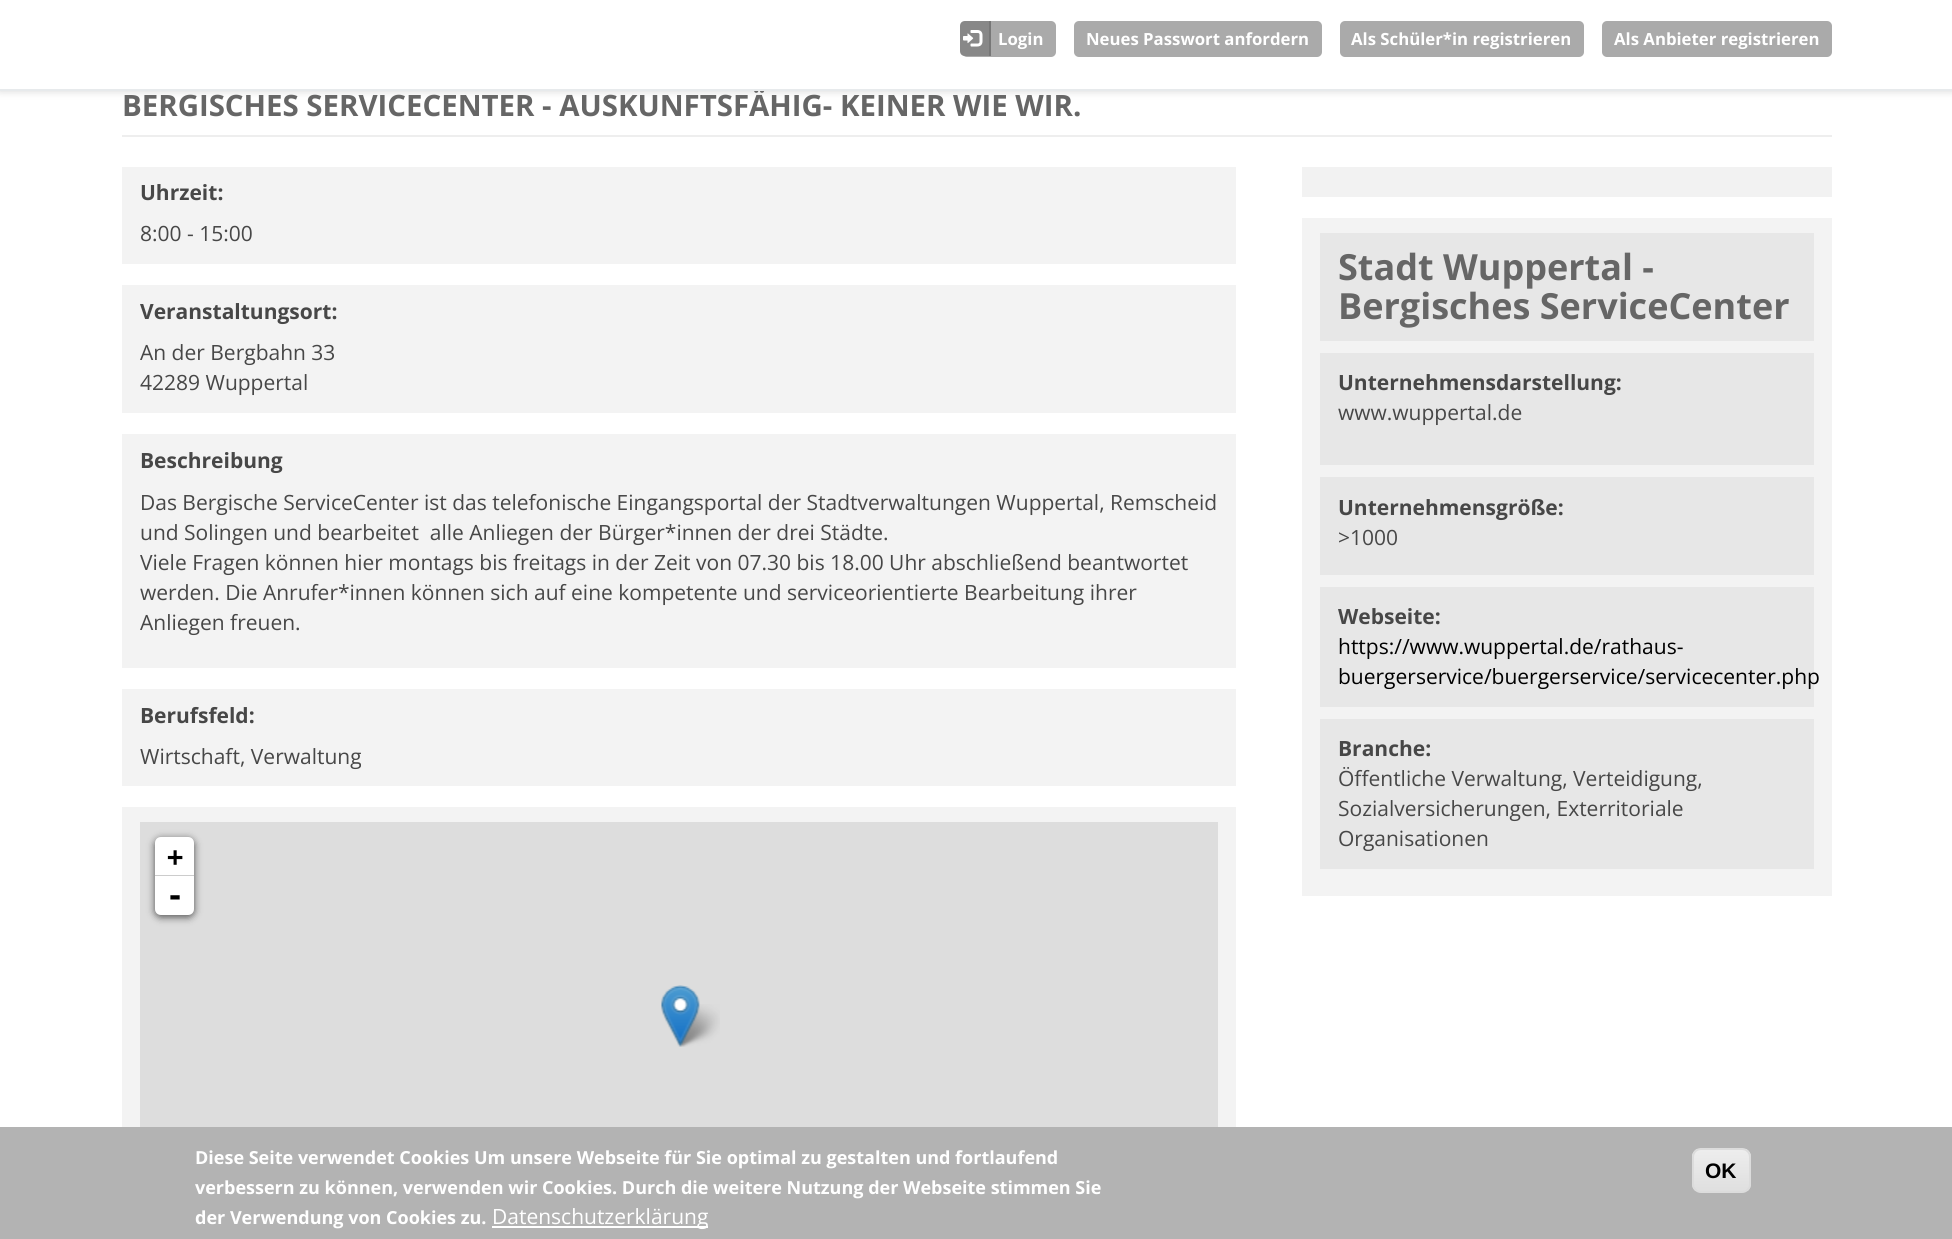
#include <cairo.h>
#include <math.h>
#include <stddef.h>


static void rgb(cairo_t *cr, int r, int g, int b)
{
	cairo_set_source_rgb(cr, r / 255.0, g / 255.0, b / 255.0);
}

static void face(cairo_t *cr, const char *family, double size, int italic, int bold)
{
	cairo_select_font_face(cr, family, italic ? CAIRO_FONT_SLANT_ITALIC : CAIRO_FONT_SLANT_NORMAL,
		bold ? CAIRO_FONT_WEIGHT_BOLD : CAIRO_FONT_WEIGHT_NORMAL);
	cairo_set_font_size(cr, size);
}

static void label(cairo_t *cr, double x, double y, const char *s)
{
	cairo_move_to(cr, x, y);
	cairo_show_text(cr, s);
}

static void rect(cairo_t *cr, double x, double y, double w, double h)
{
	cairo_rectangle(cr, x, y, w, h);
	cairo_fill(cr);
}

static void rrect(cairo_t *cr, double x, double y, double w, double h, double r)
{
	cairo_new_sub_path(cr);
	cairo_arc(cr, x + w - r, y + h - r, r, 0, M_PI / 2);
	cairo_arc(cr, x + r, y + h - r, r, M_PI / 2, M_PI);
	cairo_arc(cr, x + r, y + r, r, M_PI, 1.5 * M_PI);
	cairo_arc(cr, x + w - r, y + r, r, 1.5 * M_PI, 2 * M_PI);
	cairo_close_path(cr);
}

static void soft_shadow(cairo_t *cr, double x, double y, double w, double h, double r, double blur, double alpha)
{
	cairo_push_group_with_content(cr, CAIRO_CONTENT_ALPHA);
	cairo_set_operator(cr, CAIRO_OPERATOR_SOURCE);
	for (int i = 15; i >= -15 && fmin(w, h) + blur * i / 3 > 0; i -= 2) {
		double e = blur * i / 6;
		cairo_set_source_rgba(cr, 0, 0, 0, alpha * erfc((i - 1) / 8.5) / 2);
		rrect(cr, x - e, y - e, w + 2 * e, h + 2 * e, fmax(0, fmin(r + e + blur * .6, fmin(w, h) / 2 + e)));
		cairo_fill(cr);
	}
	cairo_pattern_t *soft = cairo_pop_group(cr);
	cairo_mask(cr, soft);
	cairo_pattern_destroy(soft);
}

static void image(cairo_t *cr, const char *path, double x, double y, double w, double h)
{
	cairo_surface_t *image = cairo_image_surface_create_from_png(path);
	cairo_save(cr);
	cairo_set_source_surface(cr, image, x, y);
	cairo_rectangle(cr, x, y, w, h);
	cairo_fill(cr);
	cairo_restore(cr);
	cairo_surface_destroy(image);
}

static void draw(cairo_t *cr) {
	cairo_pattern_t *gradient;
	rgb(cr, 255, 255, 255);
	cairo_paint(cr);
	rgb(cr, 204, 204, 204);
	soft_shadow(cr, 0, 0, 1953, 90, 0, 4.5, 1);
	face(cr, "Open Sans", 29.4, 0, 1);
	rgb(cr, 102, 102, 102);
	label(cr, 122, 116, "BERGISCHES SERVICECENTER - AUSKUNFTSFÄHIG- KEINER WIE WIR.");
	rgb(cr, 255, 255, 255);
	rect(cr, 0, 0, 1952, 89);
	rgb(cr, 231, 234, 236);
	rect(cr, 0, 89, 1952, 2);
	rgb(cr, 170, 170, 170);
	rrect(cr, 962, 21, 94, 36, 5);
	cairo_fill(cr);
	rgb(cr, 136, 136, 136);
	cairo_new_path(cr);
	cairo_move_to(cr, 965, 21);
	cairo_line_to(cr, 990, 21);
	cairo_line_to(cr, 990, 56);
	cairo_line_to(cr, 965, 56);
	cairo_curve_to(cr, 962, 56, 960, 54, 960, 51);
	cairo_line_to(cr, 960, 26);
	cairo_curve_to(cr, 960, 23, 962, 21, 965, 21);
	cairo_close_path(cr);
	cairo_fill(cr);
	rgb(cr, 119, 119, 119);
	rect(cr, 989, 21, 2, 35);
	image(cr, "image0.png", 963, 30, 20, 17);
	face(cr, "Open Sans", 16.75, 0, 1);
	rgb(cr, 255, 255, 255);
	label(cr, 998, 45, "Login");
	rgb(cr, 170, 170, 170);
	rrect(cr, 1074, 21, 248, 36, 5);
	cairo_fill(cr);
	rgb(cr, 255, 255, 255);
	label(cr, 1086, 45, "Neues Passwort anfordern");
	rgb(cr, 170, 170, 170);
	rrect(cr, 1340, 21, 244, 36, 5);
	cairo_fill(cr);
	rgb(cr, 255, 255, 255);
	label(cr, 1351, 45, "Als Schüler*in registrieren");
	rgb(cr, 170, 170, 170);
	rrect(cr, 1602, 21, 230, 36, 5);
	cairo_fill(cr);
	rgb(cr, 255, 255, 255);
	label(cr, 1614, 45, "Als Anbieter registrieren");
	rgb(cr, 238, 238, 238);
	rect(cr, 122, 135, 1710, 2);
	rgb(cr, 243, 243, 243);
	rect(cr, 122, 167, 1114, 97);
	face(cr, "Open Sans", 21, 0, 1);
	rgb(cr, 71, 71, 71);
	label(cr, 140, 200, "Uhrzeit:");
	face(cr, "Open Sans", 21, 0, 0);
	label(cr, 140, 241, "8:00 - 15:00");
	rgb(cr, 243, 243, 243);
	rect(cr, 122, 285, 1114, 128);
	face(cr, "Open Sans", 21, 0, 1);
	rgb(cr, 71, 71, 71);
	label(cr, 140, 319, "Veranstaltungsort:");
	face(cr, "Open Sans", 21, 0, 0);
	label(cr, 140, 360, "An der Bergbahn 33");
	label(cr, 140, 390, "42289 Wuppertal");
	rgb(cr, 243, 243, 243);
	rect(cr, 122, 434, 1114, 234);
	face(cr, "Open Sans", 21, 0, 1);
	rgb(cr, 71, 71, 71);
	label(cr, 140, 468, "Beschreibung");
	face(cr, "Open Sans", 21, 0, 0);
	label(cr, 140, 510, "Das Bergische ServiceCenter ist das telefonische Eingangsportal der Stadtverwaltungen Wuppertal, Remscheid");
	label(cr, 140, 540, "und Solingen und bearbeitet  alle Anliegen der Bürger*innen der drei Städte.");
	label(cr, 140, 570, "Viele Fragen können hier montags bis freitags in der Zeit von 07.30 bis 18.00 Uhr abschließend beantwortet");
	label(cr, 140, 600, "werden. Die Anrufer*innen können sich auf eine kompetente und serviceorientierte Bearbeitung ihrer");
	label(cr, 140, 630, "Anliegen freuen.");
	rgb(cr, 243, 243, 243);
	rect(cr, 122, 689, 1114, 97);
	face(cr, "Open Sans", 21, 0, 1);
	rgb(cr, 71, 71, 71);
	label(cr, 140, 723, "Berufsfeld:");
	face(cr, "Open Sans", 21, 0, 0);
	label(cr, 140, 764, "Wirtschaft, Verwaltung");
	rgb(cr, 243, 243, 243);
	rect(cr, 122, 807, 1114, 320);
	rgb(cr, 221, 221, 221);
	rect(cr, 140, 822, 1078, 305);
	rgb(cr, 0, 0, 0);
	soft_shadow(cr, 155, 839, 39, 78, 6, 4, 0.65);
	rgb(cr, 255, 255, 255);
	cairo_new_path(cr);
	cairo_move_to(cr, 161, 837);
	cairo_line_to(cr, 188, 837);
	cairo_curve_to(cr, 191.5, 837, 194, 839.5, 194, 843);
	cairo_line_to(cr, 194, 876);
	cairo_line_to(cr, 155, 876);
	cairo_line_to(cr, 155, 843);
	cairo_curve_to(cr, 155, 839.5, 157.5, 837, 161, 837);
	cairo_close_path(cr);
	cairo_fill(cr);
	rgb(cr, 204, 204, 204);
	rect(cr, 155, 875, 39, 1);
	face(cr, "DejaVu Sans Mono", 27, 0, 1);
	rgb(cr, 0, 0, 0);
	label(cr, 167, 866, "+");
	rgb(cr, 255, 255, 255);
	cairo_new_path(cr);
	cairo_move_to(cr, 155, 876);
	cairo_line_to(cr, 194, 876);
	cairo_line_to(cr, 194, 909);
	cairo_curve_to(cr, 194, 912.5, 191.5, 915, 188, 915);
	cairo_line_to(cr, 161, 915);
	cairo_curve_to(cr, 157.5, 915, 155, 912.5, 155, 909);
	cairo_close_path(cr);
	cairo_fill(cr);
	face(cr, "DejaVu Sans Mono", 30, 0, 1);
	rgb(cr, 0, 0, 0);
	label(cr, 166, 906, "-");
	image(cr, "image2.png", 675, 1004, 45, 43);
	image(cr, "image1.png", 661, 985, 39, 62);
	rgb(cr, 242, 242, 242);
	rect(cr, 1302, 167, 530, 30);
	rgb(cr, 243, 243, 243);
	rect(cr, 1302, 218, 530, 678);
	rgb(cr, 231, 231, 231);
	rect(cr, 1320, 233, 494, 108);
	face(cr, "Open Sans", 36, 0, 1);
	rgb(cr, 102, 102, 102);
	label(cr, 1338, 280, "Stadt Wuppertal -");
	label(cr, 1338, 319, "Bergisches ServiceCenter");
	rgb(cr, 231, 231, 231);
	rect(cr, 1320, 353, 494, 112);
	face(cr, "Open Sans", 21, 0, 1);
	rgb(cr, 71, 71, 71);
	label(cr, 1338, 390, "Unternehmensdarstellung:");
	face(cr, "Open Sans", 21, 0, 0);
	label(cr, 1338, 420, "www.wuppertal.de");
	rgb(cr, 231, 231, 231);
	rect(cr, 1320, 477, 494, 98);
	face(cr, "Open Sans", 21, 0, 1);
	rgb(cr, 71, 71, 71);
	label(cr, 1338, 515, "Unternehmensgröße:");
	face(cr, "Open Sans", 21, 0, 0);
	label(cr, 1338, 545, ">1000");
	rgb(cr, 231, 231, 231);
	rect(cr, 1320, 587, 494, 120);
	face(cr, "Open Sans", 21, 0, 1);
	rgb(cr, 71, 71, 71);
	label(cr, 1338, 624, "Webseite:");
	face(cr, "Open Sans", 21, 0, 0);
	rgb(cr, 0, 0, 0);
	label(cr, 1338, 654, "https://www.wuppertal.de/rathaus-");
	label(cr, 1338, 684, "buergerservice/buergerservice/servicecenter.php");
	rgb(cr, 231, 231, 231);
	rect(cr, 1320, 719, 494, 150);
	face(cr, "Open Sans", 21, 0, 1);
	rgb(cr, 71, 71, 71);
	label(cr, 1338, 756, "Branche:");
	face(cr, "Open Sans", 21, 0, 0);
	label(cr, 1338, 786, "Öffentliche Verwaltung, Verteidigung,");
	label(cr, 1338, 816, "Sozialversicherungen, Exterritoriale");
	label(cr, 1338, 846, "Organisationen");
	rgb(cr, 179, 179, 179);
	rect(cr, 0, 1127, 1952, 112);
	face(cr, "Open Sans", 18, 0, 1);
	rgb(cr, 255, 255, 255);
	label(cr, 195, 1164, "Diese Seite verwendet Cookies Um unsere Webseite für Sie optimal zu gestalten und fortlaufend");
	label(cr, 195, 1194, "verbessern zu können, verwenden wir Cookies. Durch die weitere Nutzung der Webseite stimmen Sie");
	label(cr, 195, 1224, "der Verwendung von Cookies zu.");
	rect(cr, 492, 1226, 216, 2);
	face(cr, "Open Sans", 21, 0, 0);
	label(cr, 492, 1224, "Datenschutzerklärung");
	cairo_save(cr);
	rrect(cr, 1692, 1148, 59, 45, 9);
	cairo_clip(cr);
	gradient = cairo_pattern_create_linear(1721, 1149, 1721, 1191);
	cairo_pattern_add_color_stop_rgba(gradient, 0.05, 0.929, 0.929, 0.929, 1);
	cairo_pattern_add_color_stop_rgba(gradient, 1, 0.875, 0.875, 0.875, 1);
	cairo_set_source(cr, gradient);
	cairo_pattern_destroy(gradient);
	rect(cr, 1692, 1149, 59, 42);
	cairo_restore(cr);
	rrect(cr, 1693, 1149, 57, 43, 8);
	rgb(cr, 220, 220, 220);
	cairo_stroke(cr);
	face(cr, "Liberation Sans", 21, 0, 1);
	rgb(cr, 0, 0, 0);
	label(cr, 1705, 1178, "OK");
}

int main(void) {
	cairo_surface_t *surface = cairo_image_surface_create(CAIRO_FORMAT_RGB24, 1952, 1239);
	cairo_t *cr = cairo_create(surface);
	cairo_font_options_t *options = cairo_font_options_create();
	cairo_font_options_set_hint_metrics(options, CAIRO_HINT_METRICS_OFF);
	cairo_font_options_set_hint_style(options, CAIRO_HINT_STYLE_NONE);
	cairo_set_font_options(cr, options);
	cairo_set_miter_limit(cr, 4);
	draw(cr);
	cairo_surface_write_to_png(surface, "render.png");
	cairo_font_options_destroy(options);
	cairo_destroy(cr);
	cairo_surface_destroy(surface);
	return 0;
}
